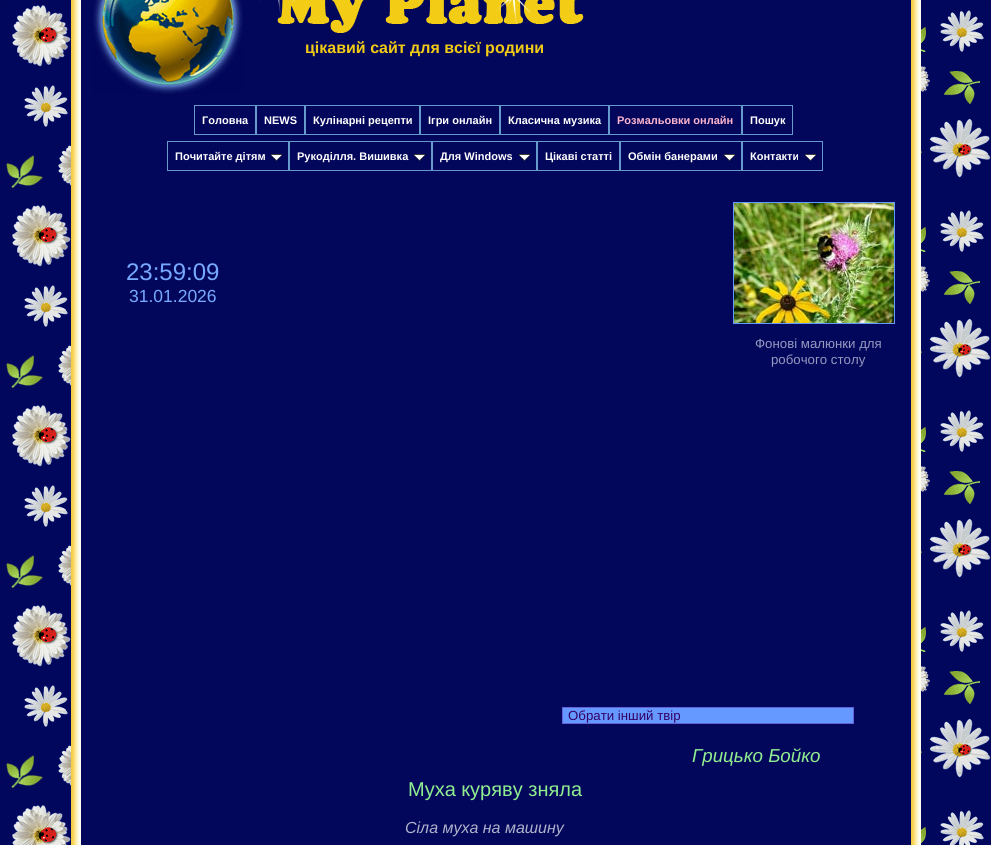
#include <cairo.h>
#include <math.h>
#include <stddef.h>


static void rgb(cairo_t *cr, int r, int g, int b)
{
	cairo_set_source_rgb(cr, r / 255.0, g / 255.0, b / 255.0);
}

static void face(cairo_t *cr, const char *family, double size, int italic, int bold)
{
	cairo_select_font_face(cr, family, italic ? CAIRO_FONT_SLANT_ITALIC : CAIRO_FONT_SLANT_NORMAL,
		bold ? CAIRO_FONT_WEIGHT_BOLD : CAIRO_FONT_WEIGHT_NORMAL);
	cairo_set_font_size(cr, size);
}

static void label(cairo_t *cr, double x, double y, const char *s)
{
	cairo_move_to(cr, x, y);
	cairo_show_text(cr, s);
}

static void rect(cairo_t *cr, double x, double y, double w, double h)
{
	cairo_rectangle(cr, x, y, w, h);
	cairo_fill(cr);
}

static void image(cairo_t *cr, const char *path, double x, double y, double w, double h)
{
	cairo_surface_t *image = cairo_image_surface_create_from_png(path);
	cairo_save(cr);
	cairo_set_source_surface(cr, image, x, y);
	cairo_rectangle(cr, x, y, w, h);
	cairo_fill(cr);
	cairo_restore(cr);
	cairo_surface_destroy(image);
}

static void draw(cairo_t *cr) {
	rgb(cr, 3, 7, 91);
	cairo_paint(cr);
	image(cr, "image0.png", 4, 5, 987, 840);
	rgb(cr, 3, 7, 91);
	rect(cr, 81, 5, 830, 840);
	image(cr, "image1.png", 71, 0, 10, 845);
	image(cr, "image2.png", 93, 0, 150, 94);
	image(cr, "image3.png", 259, 0, 325, 33);
	face(cr, "Liberation Sans", 16, 0, 1);
	rgb(cr, 242, 203, 21);
	label(cr, 305, 53, "цікавий сайт для всієї родини");
	cairo_rectangle(cr, 194.5, 105.5, 61, 29);
	rgb(cr, 102, 153, 204);
	cairo_set_line_width(cr, 1);
	cairo_stroke(cr);
	face(cr, "Liberation Sans", 11, 0, 1);
	rgb(cr, 255, 255, 255);
	label(cr, 202, 124, "Головна");
	cairo_rectangle(cr, 256.5, 105.5, 48, 29);
	rgb(cr, 102, 153, 204);
	cairo_stroke(cr);
	rgb(cr, 255, 255, 255);
	label(cr, 264, 124, "NEWS");
	cairo_rectangle(cr, 305.5, 105.5, 114, 29);
	rgb(cr, 102, 153, 204);
	cairo_stroke(cr);
	rgb(cr, 255, 255, 255);
	label(cr, 313, 124, "Кулінарні рецепти");
	cairo_rectangle(cr, 420.5, 105.5, 79, 29);
	rgb(cr, 102, 153, 204);
	cairo_stroke(cr);
	rgb(cr, 255, 255, 255);
	label(cr, 428, 124, "Ігри онлайн");
	cairo_rectangle(cr, 500.5, 105.5, 108, 29);
	rgb(cr, 102, 153, 204);
	cairo_stroke(cr);
	rgb(cr, 255, 255, 255);
	label(cr, 508, 124, "Класична музика");
	cairo_rectangle(cr, 609.5, 105.5, 132, 29);
	rgb(cr, 102, 153, 204);
	cairo_stroke(cr);
	rgb(cr, 255, 181, 205);
	label(cr, 617, 124, "Розмальовки онлайн");
	cairo_rectangle(cr, 742.5, 105.5, 50, 29);
	rgb(cr, 102, 153, 204);
	cairo_stroke(cr);
	rgb(cr, 255, 255, 255);
	label(cr, 750, 124, "Пошук");
	cairo_rectangle(cr, 167.5, 141.5, 121, 29);
	rgb(cr, 102, 153, 204);
	cairo_stroke(cr);
	rgb(cr, 255, 255, 255);
	label(cr, 175, 160, "Почитайте дітям");
	image(cr, "image4.png", 271, 154, 11, 7);
	cairo_rectangle(cr, 289.5, 141.5, 142, 29);
	rgb(cr, 102, 153, 204);
	cairo_stroke(cr);
	rgb(cr, 255, 255, 255);
	label(cr, 297, 160, "Рукоділля. Вишивка");
	image(cr, "image4.png", 414, 154, 11, 7);
	cairo_rectangle(cr, 432.5, 141.5, 104, 29);
	rgb(cr, 102, 153, 204);
	cairo_stroke(cr);
	rgb(cr, 255, 255, 255);
	label(cr, 440, 160, "Для Windows");
	image(cr, "image4.png", 519, 154, 11, 7);
	cairo_rectangle(cr, 537.5, 141.5, 82, 29);
	rgb(cr, 102, 153, 204);
	cairo_stroke(cr);
	rgb(cr, 255, 255, 255);
	label(cr, 545, 160, "Цікаві статті");
	cairo_rectangle(cr, 620.5, 141.5, 121, 29);
	rgb(cr, 102, 153, 204);
	cairo_stroke(cr);
	rgb(cr, 255, 255, 255);
	label(cr, 628, 160, "Обмін банерами");
	image(cr, "image4.png", 724, 154, 11, 7);
	cairo_rectangle(cr, 742.5, 141.5, 80, 29);
	rgb(cr, 102, 153, 204);
	cairo_stroke(cr);
	rgb(cr, 255, 255, 255);
	label(cr, 750, 160, "Контакти");
	image(cr, "image4.png", 805, 154, 11, 7);
	face(cr, "Liberation Sans", 24, 0, 0);
	rgb(cr, 119, 170, 255);
	label(cr, 126, 280, "23:59:09");
	face(cr, "Liberation Sans", 17.5, 0, 0);
	label(cr, 129, 302, "31.01.2026");
	cairo_rectangle(cr, 733.5, 202.5, 161, 121);
	rgb(cr, 102, 153, 255);
	cairo_stroke(cr);
	image(cr, "image5.png", 734, 203, 160, 120);
	face(cr, "Liberation Sans", 13.25, 0, 0);
	rgb(cr, 149, 153, 191);
	label(cr, 755, 348, "Фонові малюнки для");
	label(cr, 771, 364, "робочого столу");
	rgb(cr, 102, 153, 255);
	cairo_rectangle(cr, 562.5, 707.5, 291, 16);
	cairo_fill_preserve(cr);
	rgb(cr, 97, 98, 220);
	cairo_stroke(cr);
	rgb(cr, 50, 0, 102);
	label(cr, 568, 720, "Обрати інший твір");
	face(cr, "Liberation Sans", 18.75, 1, 0);
	rgb(cr, 144, 238, 144);
	label(cr, 692, 762, "Грицько Бойко");
	face(cr, "Liberation Sans", 20, 0, 0);
	label(cr, 408, 796, "Муха куряву зняла");
	face(cr, "Liberation Sans", 16, 1, 0);
	rgb(cr, 175, 178, 203);
	label(cr, 405, 833, "Сіла муха на машину");
	image(cr, "image1.png", 911, 0, 10, 845);
}

int main(void) {
	cairo_surface_t *surface = cairo_image_surface_create(CAIRO_FORMAT_RGB24, 991, 845);
	cairo_t *cr = cairo_create(surface);
	cairo_font_options_t *options = cairo_font_options_create();
	cairo_font_options_set_hint_metrics(options, CAIRO_HINT_METRICS_OFF);
	cairo_font_options_set_hint_style(options, CAIRO_HINT_STYLE_NONE);
	cairo_set_font_options(cr, options);
	cairo_set_miter_limit(cr, 4);
	draw(cr);
	cairo_surface_write_to_png(surface, "render.png");
	cairo_font_options_destroy(options);
	cairo_destroy(cr);
	cairo_surface_destroy(surface);
	return 0;
}
